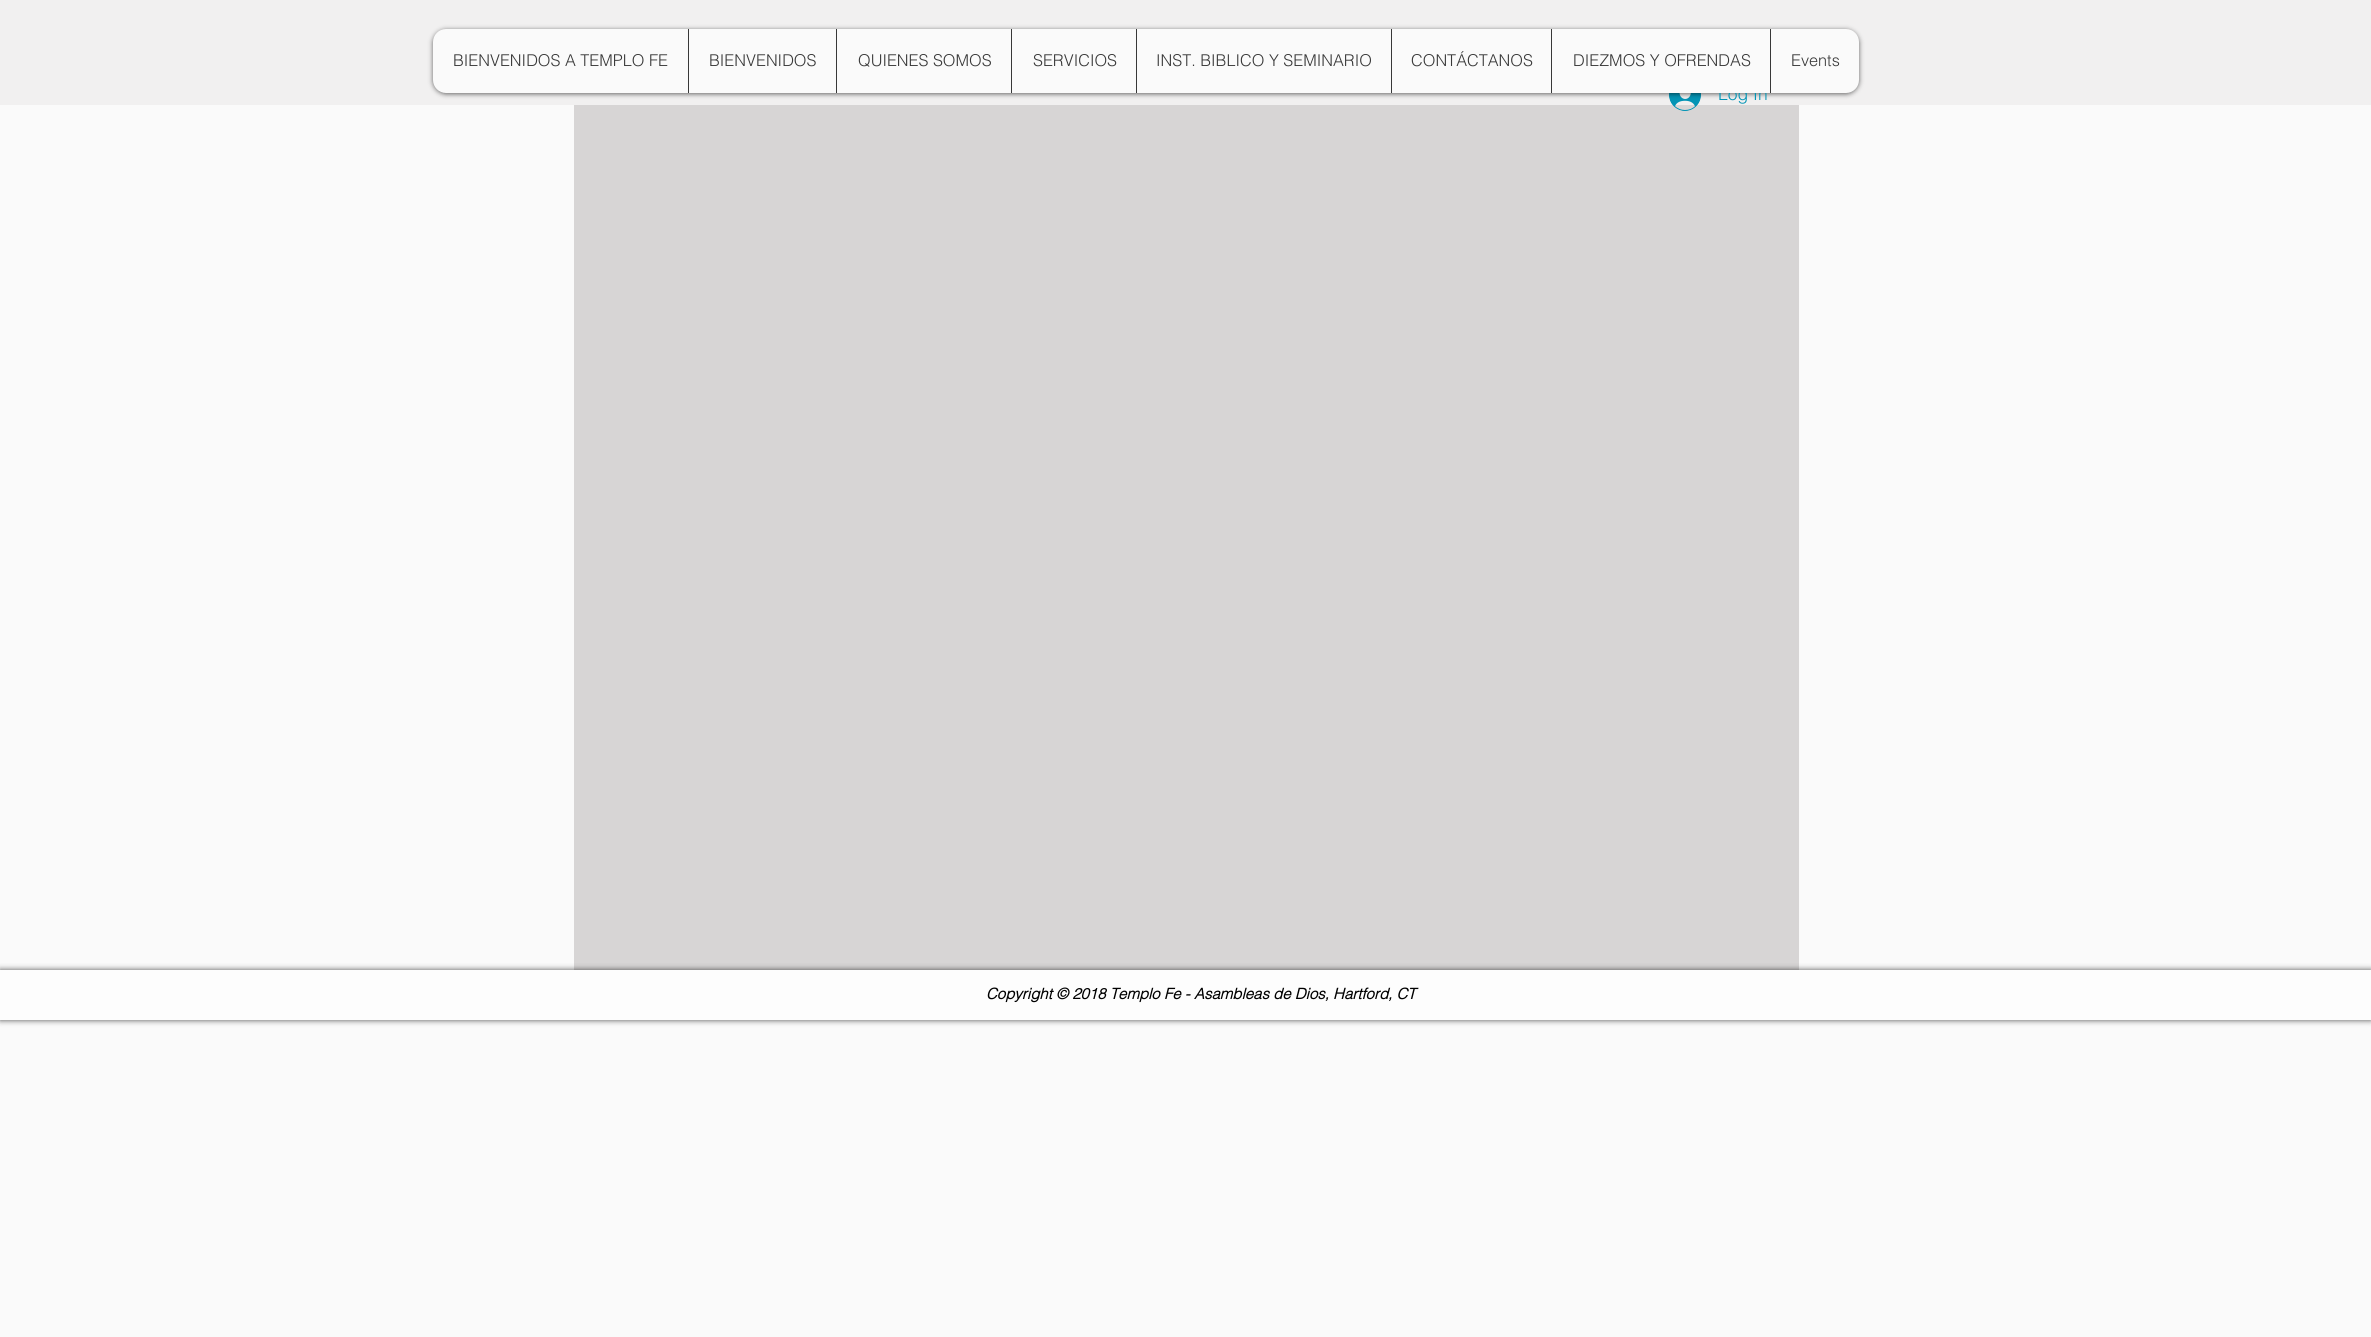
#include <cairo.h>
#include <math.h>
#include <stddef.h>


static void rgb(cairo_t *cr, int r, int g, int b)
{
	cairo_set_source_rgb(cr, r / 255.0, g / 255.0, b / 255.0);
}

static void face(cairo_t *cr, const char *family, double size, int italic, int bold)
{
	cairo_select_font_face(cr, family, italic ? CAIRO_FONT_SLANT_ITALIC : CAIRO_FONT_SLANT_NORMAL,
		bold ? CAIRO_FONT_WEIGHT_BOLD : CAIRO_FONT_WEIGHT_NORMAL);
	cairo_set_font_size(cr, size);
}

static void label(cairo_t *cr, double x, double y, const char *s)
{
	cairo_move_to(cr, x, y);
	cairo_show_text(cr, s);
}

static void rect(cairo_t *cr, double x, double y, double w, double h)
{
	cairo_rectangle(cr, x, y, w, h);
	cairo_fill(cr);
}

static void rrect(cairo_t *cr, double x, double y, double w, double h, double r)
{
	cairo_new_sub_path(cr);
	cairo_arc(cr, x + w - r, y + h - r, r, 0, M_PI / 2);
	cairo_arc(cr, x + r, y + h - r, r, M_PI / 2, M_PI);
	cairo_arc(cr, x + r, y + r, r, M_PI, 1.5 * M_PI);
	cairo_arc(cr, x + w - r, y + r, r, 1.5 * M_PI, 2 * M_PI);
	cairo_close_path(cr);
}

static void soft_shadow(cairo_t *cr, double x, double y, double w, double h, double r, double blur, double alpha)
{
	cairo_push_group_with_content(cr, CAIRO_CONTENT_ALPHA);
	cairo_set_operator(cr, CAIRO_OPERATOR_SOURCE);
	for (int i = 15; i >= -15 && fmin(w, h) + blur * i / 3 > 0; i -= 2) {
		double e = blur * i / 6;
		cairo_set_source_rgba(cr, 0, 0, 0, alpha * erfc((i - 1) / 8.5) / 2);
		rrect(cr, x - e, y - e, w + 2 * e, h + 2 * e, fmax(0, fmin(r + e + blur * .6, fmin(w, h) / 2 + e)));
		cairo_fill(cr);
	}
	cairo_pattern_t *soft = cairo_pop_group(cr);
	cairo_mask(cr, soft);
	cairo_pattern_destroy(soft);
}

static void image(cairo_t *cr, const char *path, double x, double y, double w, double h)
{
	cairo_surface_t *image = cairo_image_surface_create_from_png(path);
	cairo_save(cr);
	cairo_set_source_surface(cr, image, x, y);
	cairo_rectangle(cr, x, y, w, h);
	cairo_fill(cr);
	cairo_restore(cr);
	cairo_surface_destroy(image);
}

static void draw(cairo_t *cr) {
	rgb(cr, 250, 250, 250);
	cairo_paint(cr);
	rgb(cr, 241, 240, 240);
	rect(cr, 0, 0, 2371, 105);
	rgb(cr, 215, 213, 213);
	rect(cr, 574, 105, 1225, 865);
	image(cr, "image0.png", 1669, 93, 32, 18);
	rgb(cr, 0, 0, 0);
	soft_shadow(cr, 433, 30, 1426, 64, 13, 2.5, 0.6);
	face(cr, "helvetica Light", 17.5, 0, 0);
	rgb(cr, 2, 148, 181);
	label(cr, 1718, 100, "Log In");
	rgb(cr, 250, 250, 250);
	rrect(cr, 433, 29, 1426, 64, 13);
	cairo_fill(cr);
	face(cr, "helvetica Light", 16.25, 0, 0);
	rgb(cr, 56, 56, 56);
	label(cr, 453, 66, "BIENVENIDOS A TEMPLO FE");
	rect(cr, 688, 29, 1, 64);
	label(cr, 709, 66, "BIENVENIDOS");
	rect(cr, 836, 29, 1, 64);
	label(cr, 858, 66, "QUIENES SOMOS");
	rect(cr, 1011, 29, 1, 64);
	label(cr, 1033, 66, "SERVICIOS");
	rect(cr, 1136, 29, 1, 64);
	label(cr, 1156, 66, "INST. BIBLICO Y SEMINARIO");
	rect(cr, 1391, 29, 1, 64);
	label(cr, 1411, 66, "CONTÁCTANOS");
	rect(cr, 1551, 29, 1, 64);
	label(cr, 1573, 66, "DIEZMOS Y OFRENDAS");
	rect(cr, 1770, 29, 1, 64);
	label(cr, 1791, 66, "Events");
	rgb(cr, 0, 0, 0);
	soft_shadow(cr, 0, 970, 2371, 50, 0, 3, 0.7);
	rgb(cr, 253, 253, 253);
	rect(cr, 0, 970, 2371, 50);
	face(cr, "helvetica", 15, 1, 1);
	rgb(cr, 0, 0, 0);
	label(cr, 986, 999, "Copyright © 2018 Templo Fe - Asambleas de Dios, Hartford, CT");
}

int main(void) {
	cairo_surface_t *surface = cairo_image_surface_create(CAIRO_FORMAT_RGB24, 2371, 1337);
	cairo_t *cr = cairo_create(surface);
	cairo_font_options_t *options = cairo_font_options_create();
	cairo_font_options_set_hint_metrics(options, CAIRO_HINT_METRICS_OFF);
	cairo_font_options_set_hint_style(options, CAIRO_HINT_STYLE_NONE);
	cairo_set_font_options(cr, options);
	cairo_set_miter_limit(cr, 4);
	draw(cr);
	cairo_surface_write_to_png(surface, "render.png");
	cairo_font_options_destroy(options);
	cairo_destroy(cr);
	cairo_surface_destroy(surface);
	return 0;
}
